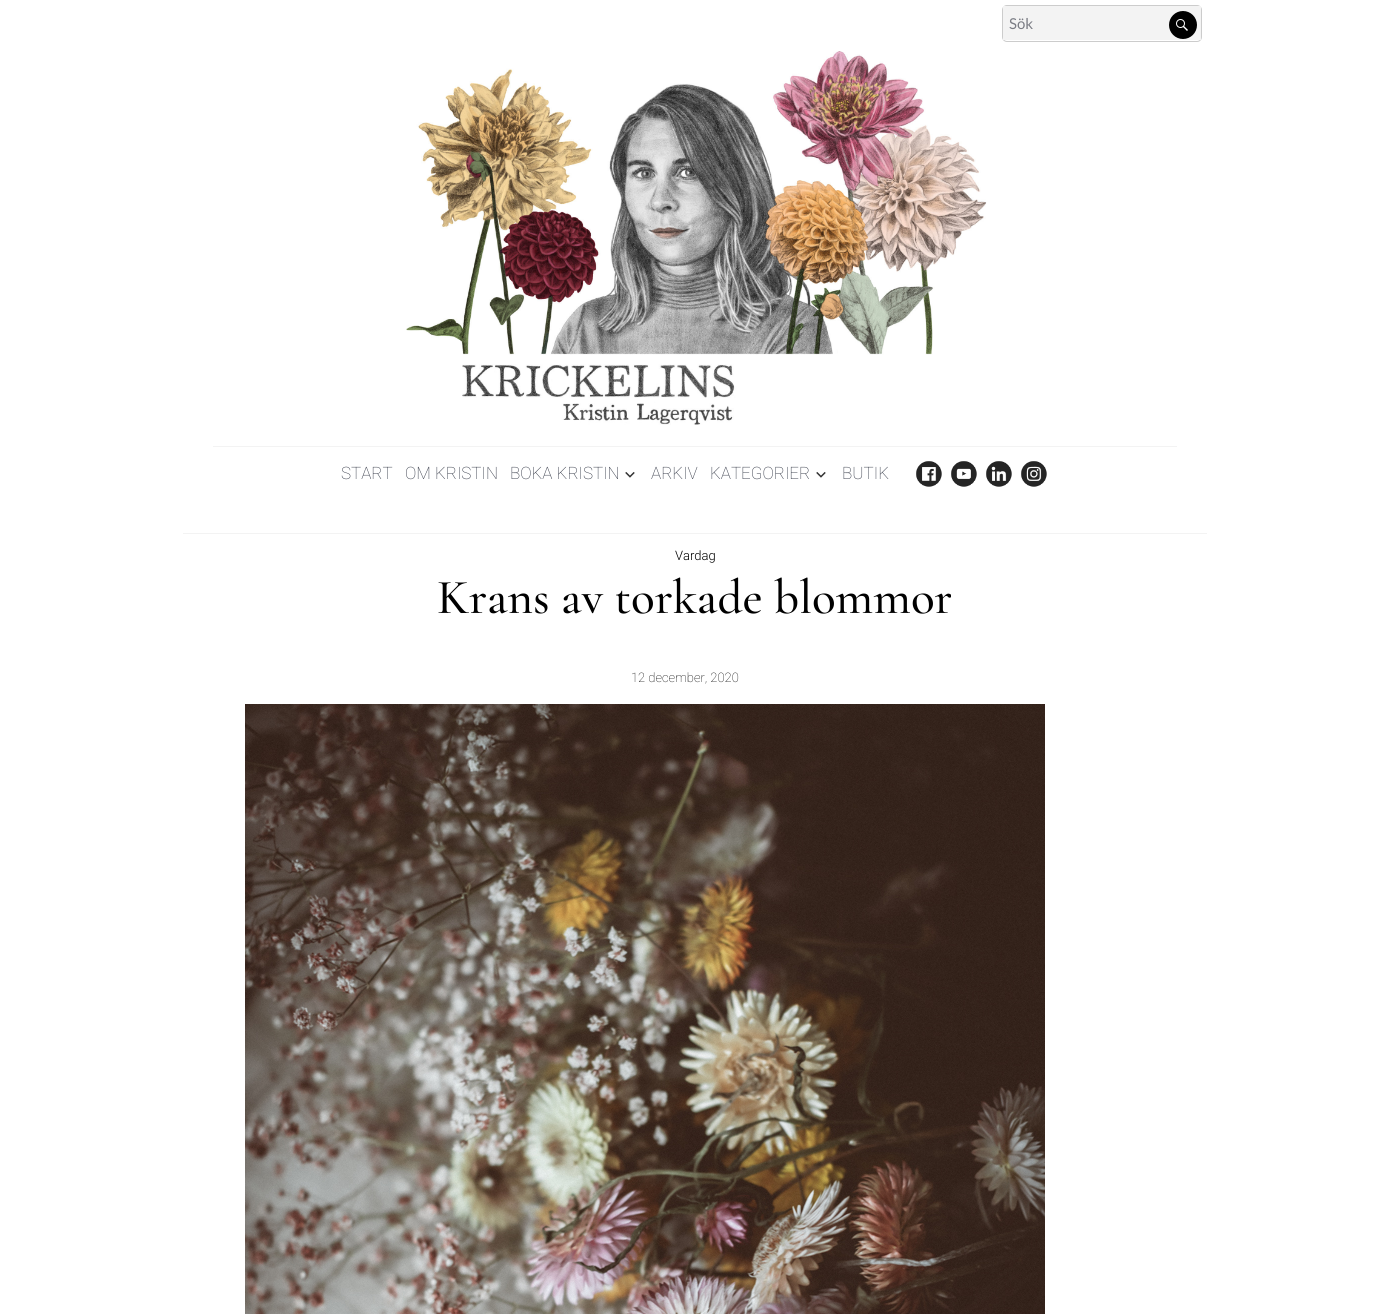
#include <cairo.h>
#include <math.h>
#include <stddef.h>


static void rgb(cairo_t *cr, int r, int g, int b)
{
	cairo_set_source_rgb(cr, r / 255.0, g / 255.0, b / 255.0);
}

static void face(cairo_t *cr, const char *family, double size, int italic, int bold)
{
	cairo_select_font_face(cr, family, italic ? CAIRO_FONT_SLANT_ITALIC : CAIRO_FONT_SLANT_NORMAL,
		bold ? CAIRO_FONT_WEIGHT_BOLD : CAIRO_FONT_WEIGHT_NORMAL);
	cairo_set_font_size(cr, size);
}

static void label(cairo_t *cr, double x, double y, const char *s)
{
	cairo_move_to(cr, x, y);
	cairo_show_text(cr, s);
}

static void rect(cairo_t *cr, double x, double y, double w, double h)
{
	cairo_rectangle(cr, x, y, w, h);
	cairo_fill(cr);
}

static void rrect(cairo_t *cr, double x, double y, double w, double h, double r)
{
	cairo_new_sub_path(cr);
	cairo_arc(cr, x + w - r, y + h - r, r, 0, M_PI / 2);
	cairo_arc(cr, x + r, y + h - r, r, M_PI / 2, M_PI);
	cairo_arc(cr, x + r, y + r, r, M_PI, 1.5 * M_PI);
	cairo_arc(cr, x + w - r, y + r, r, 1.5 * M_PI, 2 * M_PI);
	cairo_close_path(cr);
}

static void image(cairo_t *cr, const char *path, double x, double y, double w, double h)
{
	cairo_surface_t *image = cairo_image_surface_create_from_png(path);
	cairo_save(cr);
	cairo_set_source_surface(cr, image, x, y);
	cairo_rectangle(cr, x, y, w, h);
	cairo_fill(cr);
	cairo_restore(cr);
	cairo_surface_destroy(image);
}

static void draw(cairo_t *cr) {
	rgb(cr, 255, 255, 255);
	cairo_paint(cr);
	rgb(cr, 243, 243, 243);
	rect(cr, 183, 533, 1024, 1);
	rrect(cr, 1002.5, 5.5, 199, 36, 4.5);
	rgb(cr, 204, 204, 204);
	cairo_set_line_width(cr, 1);
	cairo_stroke(cr);
	rgb(cr, 243, 243, 243);
	rect(cr, 1003, 6, 198, 34);
	face(cr, "Lato", 15, 0, 0);
	rgb(cr, 122, 124, 132);
	label(cr, 1009, 29, "Sök");
	rgb(cr, 0, 0, 0);
	cairo_new_path(cr);
	cairo_arc(cr, 1183, 25, 14, 0, 2 * M_PI);
	cairo_fill(cr);
	image(cr, "image0.png", 1176, 19, 12, 12);
	image(cr, "image1.png", 406, 51, 581, 374);
	rgb(cr, 243, 243, 243);
	rect(cr, 213, 446, 964, 1);
	face(cr, "Roboto Thin", 17, 0, 0);
	rgb(cr, 44, 49, 63);
	label(cr, 341, 479, "START");
	label(cr, 405, 479, "OM KRISTIN");
	label(cr, 510, 479, "BOKA KRISTIN");
	image(cr, "image2.png", 625, 472, 10, 6);
	label(cr, 651, 479, "ARKIV");
	label(cr, 710, 479, "KATEGORIER");
	image(cr, "image2.png", 816, 472, 10, 6);
	label(cr, 842, 479, "BUTIK");
	image(cr, "image3.png", 916, 461, 26, 26);
	image(cr, "image4.png", 951, 461, 26, 26);
	image(cr, "image5.png", 986, 461, 26, 26);
	image(cr, "image6.png", 1021, 461, 26, 26);
	face(cr, "Roboto Light", 13, 0, 0);
	rgb(cr, 0, 0, 0);
	label(cr, 675, 560, "Vardag");
	face(cr, "Cormorant Garamond Medium", 49, 0, 0);
	label(cr, 437, 613, "Krans av torkade blommor");
	face(cr, "Roboto Thin", 13, 0, 0);
	label(cr, 631, 682, "12 december, 2020");
	image(cr, "image7.png", 245, 704, 800, 610);
}

int main(void) {
	cairo_surface_t *surface = cairo_image_surface_create(CAIRO_FORMAT_RGB24, 1390, 1314);
	cairo_t *cr = cairo_create(surface);
	cairo_font_options_t *options = cairo_font_options_create();
	cairo_font_options_set_hint_metrics(options, CAIRO_HINT_METRICS_OFF);
	cairo_font_options_set_hint_style(options, CAIRO_HINT_STYLE_NONE);
	cairo_set_font_options(cr, options);
	cairo_set_miter_limit(cr, 4);
	draw(cr);
	cairo_surface_write_to_png(surface, "render.png");
	cairo_font_options_destroy(options);
	cairo_destroy(cr);
	cairo_surface_destroy(surface);
	return 0;
}
